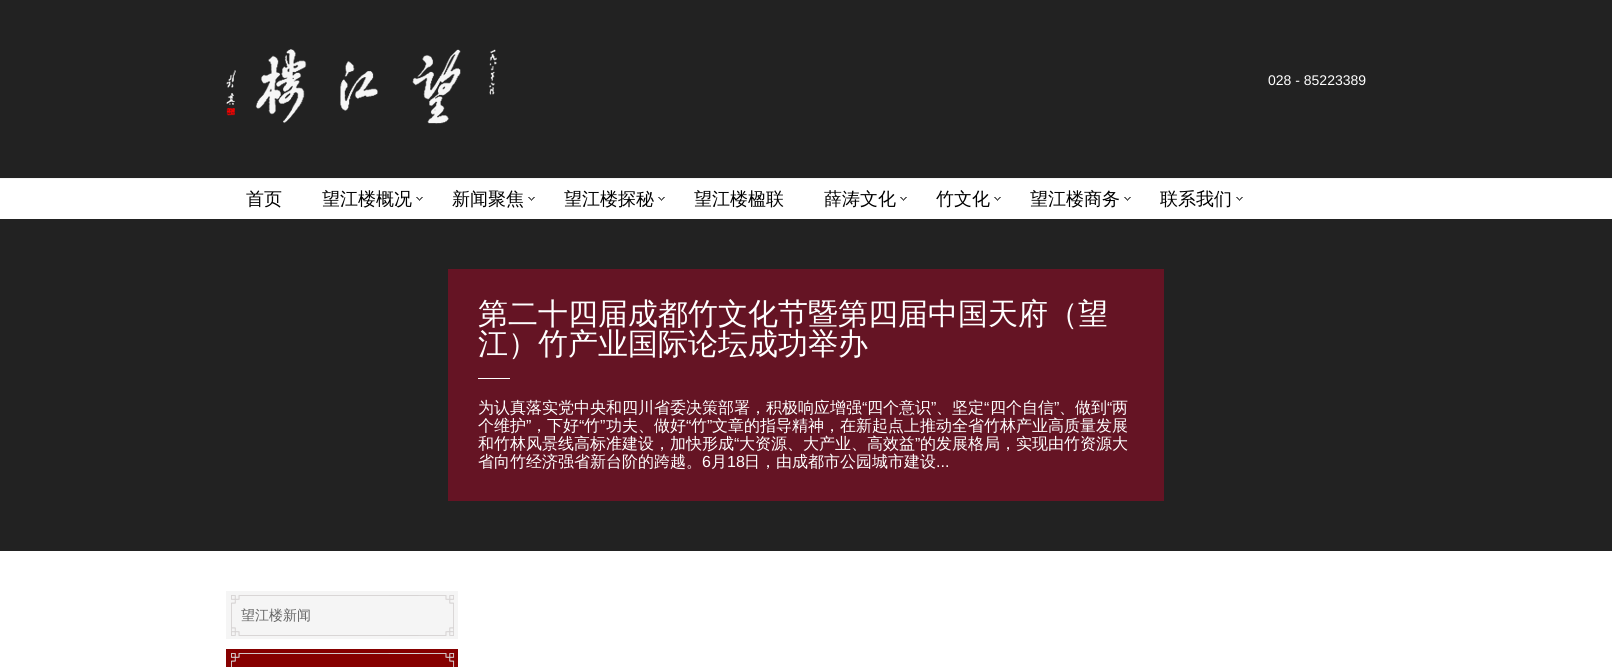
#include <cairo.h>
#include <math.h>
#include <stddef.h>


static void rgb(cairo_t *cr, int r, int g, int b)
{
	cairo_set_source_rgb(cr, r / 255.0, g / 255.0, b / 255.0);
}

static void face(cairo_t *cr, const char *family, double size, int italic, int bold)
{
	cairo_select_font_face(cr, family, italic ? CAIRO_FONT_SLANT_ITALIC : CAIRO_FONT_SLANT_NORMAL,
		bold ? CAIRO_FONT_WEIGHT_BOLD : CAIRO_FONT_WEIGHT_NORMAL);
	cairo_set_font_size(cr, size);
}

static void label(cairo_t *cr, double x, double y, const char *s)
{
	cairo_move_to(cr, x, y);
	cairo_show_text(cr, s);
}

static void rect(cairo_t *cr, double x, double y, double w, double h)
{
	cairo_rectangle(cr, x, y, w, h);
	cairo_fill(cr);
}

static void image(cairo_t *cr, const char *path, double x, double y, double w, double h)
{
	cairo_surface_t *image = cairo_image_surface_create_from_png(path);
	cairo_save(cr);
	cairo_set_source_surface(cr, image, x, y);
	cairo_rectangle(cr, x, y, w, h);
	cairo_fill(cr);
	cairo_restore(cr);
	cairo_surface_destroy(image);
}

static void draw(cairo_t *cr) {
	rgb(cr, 255, 255, 255);
	cairo_paint(cr);
	rgb(cr, 34, 34, 34);
	rect(cr, 0, 0, 1612, 178);
	image(cr, "image0.png", 226, 49, 271, 75);
	face(cr, "Liberation Sans", 14, 0, 0);
	rgb(cr, 255, 255, 255);
	label(cr, 1268, 85, "028 - 85223389");
	rgb(cr, 244, 244, 244);
	rect(cr, 0, 178, 1612, 1);
	face(cr, "WenQuanYi Zen Hei Medium", 18, 0, 0);
	rgb(cr, 0, 0, 0);
	label(cr, 246, 205, "首页");
	image(cr, "image1.png", 416, 197, 7, 4);
	label(cr, 322, 205, "望江楼概况");
	image(cr, "image1.png", 528, 197, 7, 4);
	label(cr, 452, 205, "新闻聚焦");
	image(cr, "image1.png", 658, 197, 7, 4);
	label(cr, 564, 205, "望江楼探秘");
	label(cr, 694, 205, "望江楼楹联");
	image(cr, "image1.png", 900, 197, 7, 4);
	label(cr, 824, 205, "薛涛文化");
	image(cr, "image1.png", 994, 197, 7, 4);
	label(cr, 936, 205, "竹文化");
	image(cr, "image1.png", 1124, 197, 7, 4);
	label(cr, 1030, 205, "望江楼商务");
	image(cr, "image1.png", 1236, 197, 7, 4);
	label(cr, 1160, 205, "联系我们");
	rgb(cr, 34, 34, 34);
	rect(cr, 0, 219, 1612, 332);
	rgb(cr, 101, 20, 36);
	rect(cr, 448, 269, 716, 232);
	rgb(cr, 255, 255, 255);
	rect(cr, 478, 378, 32, 1);
	face(cr, "WenQuanYi Zen Hei Medium", 30, 0, 0);
	label(cr, 478, 324, "第二十四届成都竹文化节暨第四届中国天府（望");
	label(cr, 478, 354, "江）竹产业国际论坛成功举办");
	face(cr, "WenQuanYi Zen Hei Medium", 16, 0, 0);
	label(cr, 478, 413, "为认真落实党中央和四川省委决策部署，积极响应增强");
	face(cr, "Liberation Sans", 16, 0, 0);
	label(cr, 862, 413, "“");
	face(cr, "WenQuanYi Zen Hei Medium", 16, 0, 0);
	label(cr, 867, 413, "四个意识");
	face(cr, "Liberation Sans", 16, 0, 0);
	label(cr, 931, 413, "”");
	face(cr, "WenQuanYi Zen Hei Medium", 16, 0, 0);
	label(cr, 936, 413, "、坚定");
	face(cr, "Liberation Sans", 16, 0, 0);
	label(cr, 984, 413, "“");
	face(cr, "WenQuanYi Zen Hei Medium", 16, 0, 0);
	label(cr, 990, 413, "四个自信");
	face(cr, "Liberation Sans", 16, 0, 0);
	label(cr, 1054, 413, "”");
	face(cr, "WenQuanYi Zen Hei Medium", 16, 0, 0);
	label(cr, 1059, 413, "、做到");
	face(cr, "Liberation Sans", 16, 0, 0);
	label(cr, 1107, 413, "“");
	face(cr, "WenQuanYi Zen Hei Medium", 16, 0, 0);
	label(cr, 1112, 413, "两");
	label(cr, 478, 431, "个维护");
	face(cr, "Liberation Sans", 16, 0, 0);
	label(cr, 526, 431, "”");
	face(cr, "WenQuanYi Zen Hei Medium", 16, 0, 0);
	label(cr, 531, 431, "，下好");
	face(cr, "Liberation Sans", 16, 0, 0);
	label(cr, 579, 431, "“");
	face(cr, "WenQuanYi Zen Hei Medium", 16, 0, 0);
	label(cr, 584, 431, "竹");
	face(cr, "Liberation Sans", 16, 0, 0);
	label(cr, 600, 431, "”");
	face(cr, "WenQuanYi Zen Hei Medium", 16, 0, 0);
	label(cr, 606, 431, "功夫、做好");
	face(cr, "Liberation Sans", 16, 0, 0);
	label(cr, 686, 431, "“");
	face(cr, "WenQuanYi Zen Hei Medium", 16, 0, 0);
	label(cr, 691, 431, "竹");
	face(cr, "Liberation Sans", 16, 0, 0);
	label(cr, 707, 431, "”");
	face(cr, "WenQuanYi Zen Hei Medium", 16, 0, 0);
	label(cr, 712, 431, "文章的指导精神，在新起点上推动全省竹林产业高质量发展");
	label(cr, 478, 449, "和竹林风景线高标准建设，加快形成");
	face(cr, "Liberation Sans", 16, 0, 0);
	label(cr, 734, 449, "“");
	face(cr, "WenQuanYi Zen Hei Medium", 16, 0, 0);
	label(cr, 739, 449, "大资源、大产业、高效益");
	face(cr, "Liberation Sans", 16, 0, 0);
	label(cr, 915, 449, "”");
	face(cr, "WenQuanYi Zen Hei Medium", 16, 0, 0);
	label(cr, 920, 449, "的发展格局，实现由竹资源大");
	label(cr, 478, 467, "省向竹经济强省新台阶的跨越。");
	face(cr, "Liberation Sans", 16, 0, 0);
	label(cr, 702, 467, "6");
	face(cr, "WenQuanYi Zen Hei Medium", 16, 0, 0);
	label(cr, 711, 467, "月");
	face(cr, "Liberation Sans", 16, 0, 0);
	label(cr, 727, 467, "18");
	face(cr, "WenQuanYi Zen Hei Medium", 16, 0, 0);
	label(cr, 744, 467, "日，由成都市公园城市建设");
	face(cr, "Liberation Sans", 16, 0, 0);
	label(cr, 936, 467, "...");
	rgb(cr, 245, 245, 245);
	rect(cr, 226, 591, 232, 48);
	image(cr, "image2.png", 231, 595, 223, 41);
	face(cr, "WenQuanYi Zen Hei Medium", 14, 0, 0);
	rgb(cr, 102, 102, 102);
	label(cr, 241, 620, "望江楼新闻");
	rgb(cr, 134, 0, 0);
	rect(cr, 226, 649, 232, 18);
	image(cr, "image3.png", 231, 653, 224, 14);
}

int main(void) {
	cairo_surface_t *surface = cairo_image_surface_create(CAIRO_FORMAT_RGB24, 1612, 667);
	cairo_t *cr = cairo_create(surface);
	cairo_font_options_t *options = cairo_font_options_create();
	cairo_font_options_set_hint_metrics(options, CAIRO_HINT_METRICS_OFF);
	cairo_font_options_set_hint_style(options, CAIRO_HINT_STYLE_NONE);
	cairo_set_font_options(cr, options);
	cairo_set_miter_limit(cr, 4);
	draw(cr);
	cairo_surface_write_to_png(surface, "render.png");
	cairo_font_options_destroy(options);
	cairo_destroy(cr);
	cairo_surface_destroy(surface);
	return 0;
}
